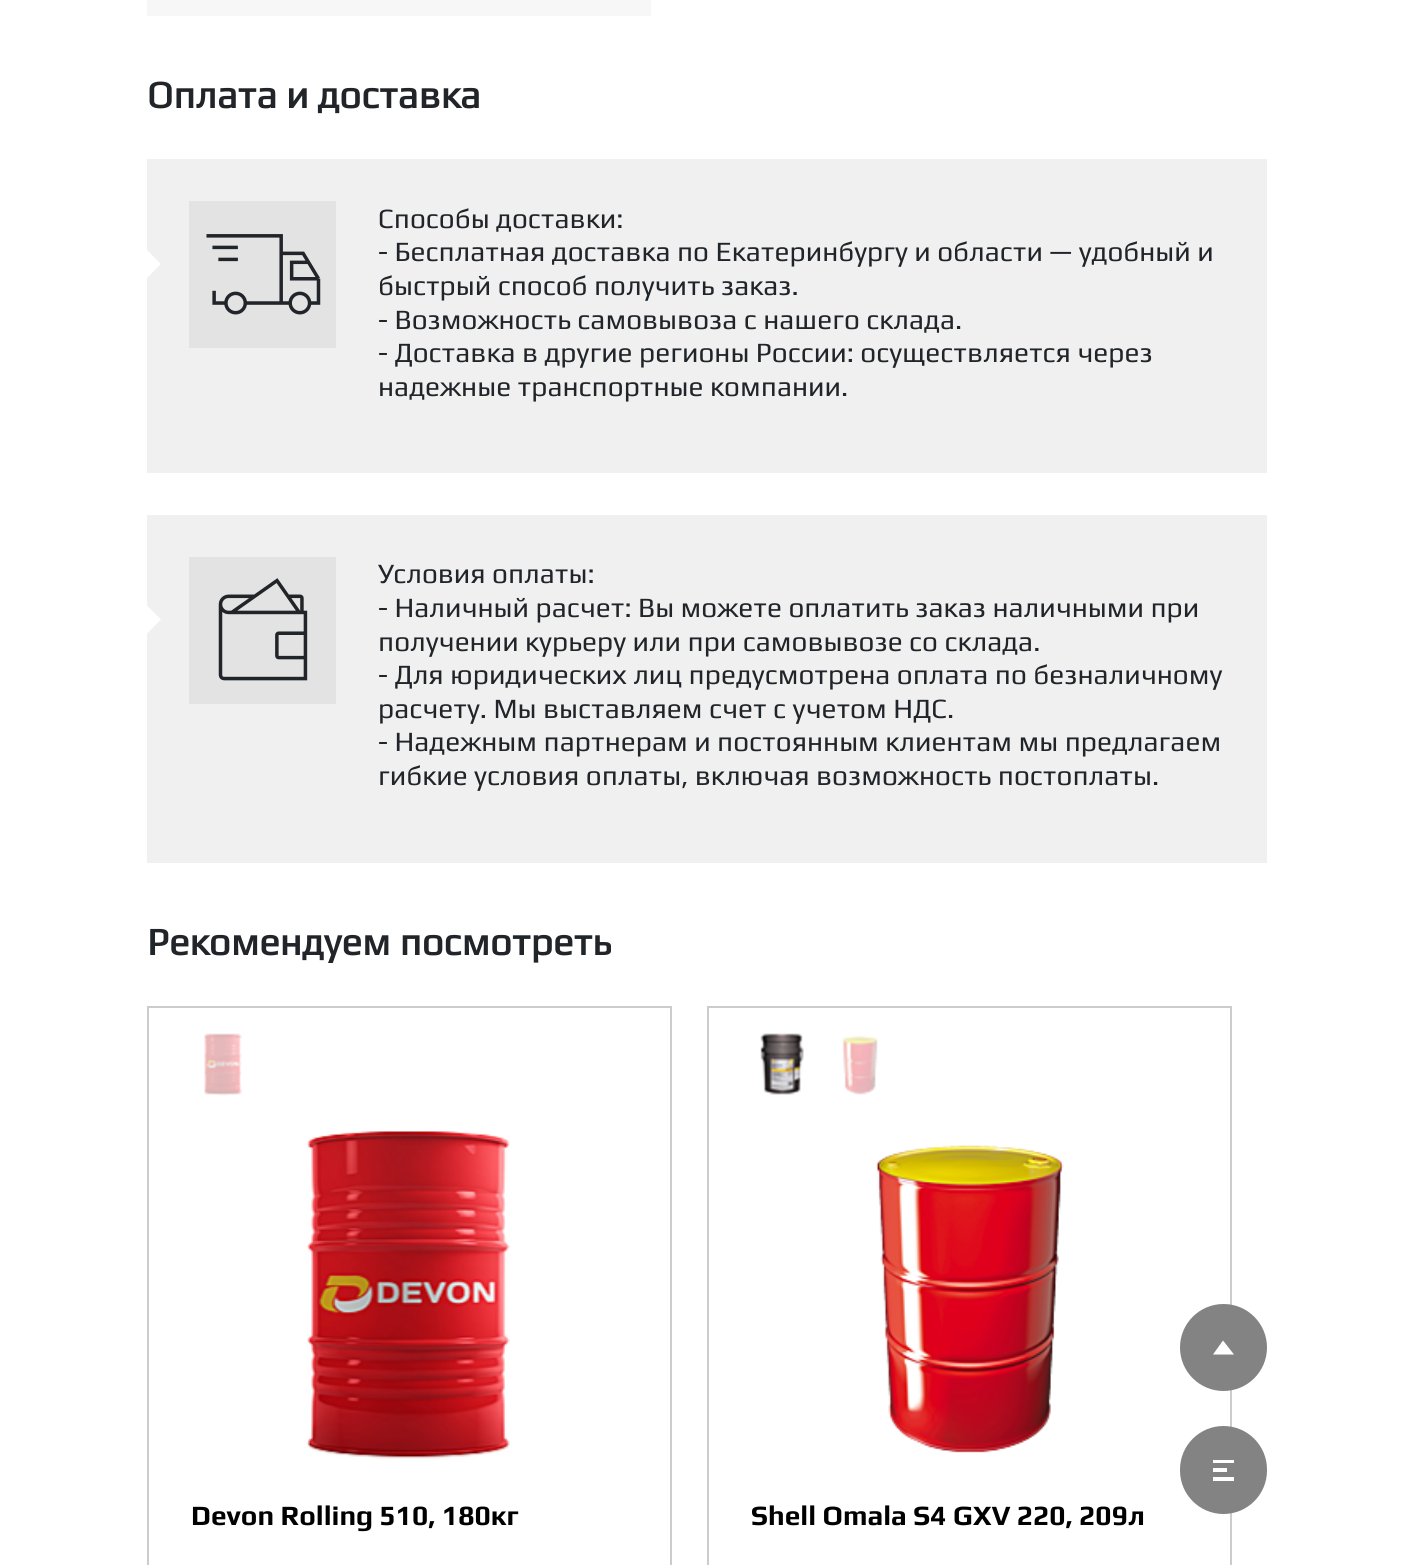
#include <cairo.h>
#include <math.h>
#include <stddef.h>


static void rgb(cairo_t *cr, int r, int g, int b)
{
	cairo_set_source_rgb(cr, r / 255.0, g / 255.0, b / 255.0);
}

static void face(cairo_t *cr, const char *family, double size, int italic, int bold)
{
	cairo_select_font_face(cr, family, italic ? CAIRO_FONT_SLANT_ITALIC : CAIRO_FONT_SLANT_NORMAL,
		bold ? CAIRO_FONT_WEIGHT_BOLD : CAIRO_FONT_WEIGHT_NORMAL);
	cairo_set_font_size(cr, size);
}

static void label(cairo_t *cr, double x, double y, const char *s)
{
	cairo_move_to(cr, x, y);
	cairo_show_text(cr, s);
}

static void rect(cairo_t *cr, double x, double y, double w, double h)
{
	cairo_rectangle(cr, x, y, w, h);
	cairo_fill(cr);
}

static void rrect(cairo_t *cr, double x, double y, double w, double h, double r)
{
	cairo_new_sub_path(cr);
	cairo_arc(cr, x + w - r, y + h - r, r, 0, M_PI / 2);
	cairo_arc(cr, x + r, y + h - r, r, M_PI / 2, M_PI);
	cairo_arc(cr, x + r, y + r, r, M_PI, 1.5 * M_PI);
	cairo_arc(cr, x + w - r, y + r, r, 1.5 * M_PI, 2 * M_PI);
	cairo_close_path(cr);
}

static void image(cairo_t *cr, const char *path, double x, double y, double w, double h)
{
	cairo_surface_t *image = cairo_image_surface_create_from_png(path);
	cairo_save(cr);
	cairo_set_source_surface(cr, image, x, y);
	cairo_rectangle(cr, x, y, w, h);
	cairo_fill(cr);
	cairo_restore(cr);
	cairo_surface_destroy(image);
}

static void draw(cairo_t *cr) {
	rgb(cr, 255, 255, 255);
	cairo_paint(cr);
	rgb(cr, 247, 247, 247);
	rect(cr, 147, 0, 504, 16);
	face(cr, "Play", 38.5, 0, 1);
	rgb(cr, 33, 37, 41);
	label(cr, 147, 108, "Оплата и доставка");
	rgb(cr, 240, 240, 240);
	rect(cr, 147, 159, 1120, 314);
	image(cr, "image0.png", 189, 201, 147, 147);
	rgb(cr, 255, 255, 255);
	cairo_new_path(cr);
	cairo_move_to(cr, 147, 278);
	cairo_line_to(cr, 147, 250);
	cairo_line_to(cr, 161, 264);
	cairo_close_path(cr);
	cairo_fill(cr);
	face(cr, "Play", 28, 0, 0);
	rgb(cr, 33, 37, 41);
	label(cr, 378, 228, "Способы доставки:");
	label(cr, 378, 261, "- Бесплатная доставка по Екатеринбургу и области — удобный и");
	label(cr, 378, 295, "быстрый способ получить заказ.");
	label(cr, 378, 329, "- Возможность самовывоза с нашего склада.");
	label(cr, 378, 362, "- Доставка в другие регионы России: осуществляется через");
	label(cr, 378, 396, "надежные транспортные компании.");
	rgb(cr, 240, 240, 240);
	rect(cr, 147, 515, 1120, 348);
	image(cr, "image1.png", 189, 557, 147, 147);
	rgb(cr, 255, 255, 255);
	cairo_new_path(cr);
	cairo_move_to(cr, 147, 633.5);
	cairo_line_to(cr, 147, 605.5);
	cairo_line_to(cr, 161, 619.5);
	cairo_close_path(cr);
	cairo_fill(cr);
	rgb(cr, 33, 37, 41);
	label(cr, 378, 583, "Условия оплаты:");
	label(cr, 378, 617, "- Наличный расчет: Вы можете оплатить заказ наличными при");
	label(cr, 378, 651, "получении курьеру или при самовывозе со склада.");
	label(cr, 378, 684, "- Для юридических лиц предусмотрена оплата по безналичному");
	label(cr, 378, 718, "расчету. Мы выставляем счет с учетом НДС.");
	label(cr, 378, 751, "- Надежным партнерам и постоянным клиентам мы предлагаем");
	label(cr, 378, 785, "гибкие условия оплаты, включая возможность постоплаты.");
	face(cr, "Play", 38.5, 0, 1);
	label(cr, 147, 955, "Рекомендуем посмотреть");
	cairo_rectangle(cr, 148, 1007, 523, 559);
	rgb(cr, 204, 204, 204);
	cairo_stroke(cr);
	image(cr, "image2.png", 204, 1033, 38, 63);
	image(cr, "image3.png", 306, 1131, 204, 328);
	face(cr, "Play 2", 28, 0, 1);
	rgb(cr, 0, 0, 0);
	label(cr, 191, 1525, "Devon Rolling 510, 180кг");
	cairo_rectangle(cr, 708, 1007, 523, 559);
	rgb(cr, 204, 204, 204);
	cairo_stroke(cr);
	image(cr, "image4.png", 760, 1033, 44, 62);
	image(cr, "image5.png", 842, 1035, 36, 60);
	image(cr, "image6.png", 876, 1145, 188, 308);
	rgb(cr, 0, 0, 0);
	label(cr, 751, 1525, "Shell Omala S4 GXV 220, 209л");
	rgb(cr, 131, 131, 131);
	rrect(cr, 1180, 1426, 87, 88, 43.5);
	cairo_fill(cr);
	rgb(cr, 255, 255, 255);
	rect(cr, 1213, 1460, 21, 3);
	rect(cr, 1213, 1468, 14, 4);
	rect(cr, 1213, 1477, 21, 4);
	rgb(cr, 131, 131, 131);
	cairo_arc(cr, 1223.5, 1347.5, 43.5, 0, 2 * M_PI);
	cairo_fill(cr);
	rgb(cr, 255, 255, 255);
	cairo_new_path(cr);
	cairo_move_to(cr, 1223, 1340.5);
	cairo_line_to(cr, 1213, 1354.5);
	cairo_line_to(cr, 1234, 1354.5);
	cairo_close_path(cr);
	cairo_fill(cr);
}

int main(void) {
	cairo_surface_t *surface = cairo_image_surface_create(CAIRO_FORMAT_RGB24, 1413, 1565);
	cairo_t *cr = cairo_create(surface);
	cairo_font_options_t *options = cairo_font_options_create();
	cairo_font_options_set_hint_metrics(options, CAIRO_HINT_METRICS_OFF);
	cairo_font_options_set_hint_style(options, CAIRO_HINT_STYLE_NONE);
	cairo_set_font_options(cr, options);
	cairo_set_miter_limit(cr, 4);
	draw(cr);
	cairo_surface_write_to_png(surface, "render.png");
	cairo_font_options_destroy(options);
	cairo_destroy(cr);
	cairo_surface_destroy(surface);
	return 0;
}
